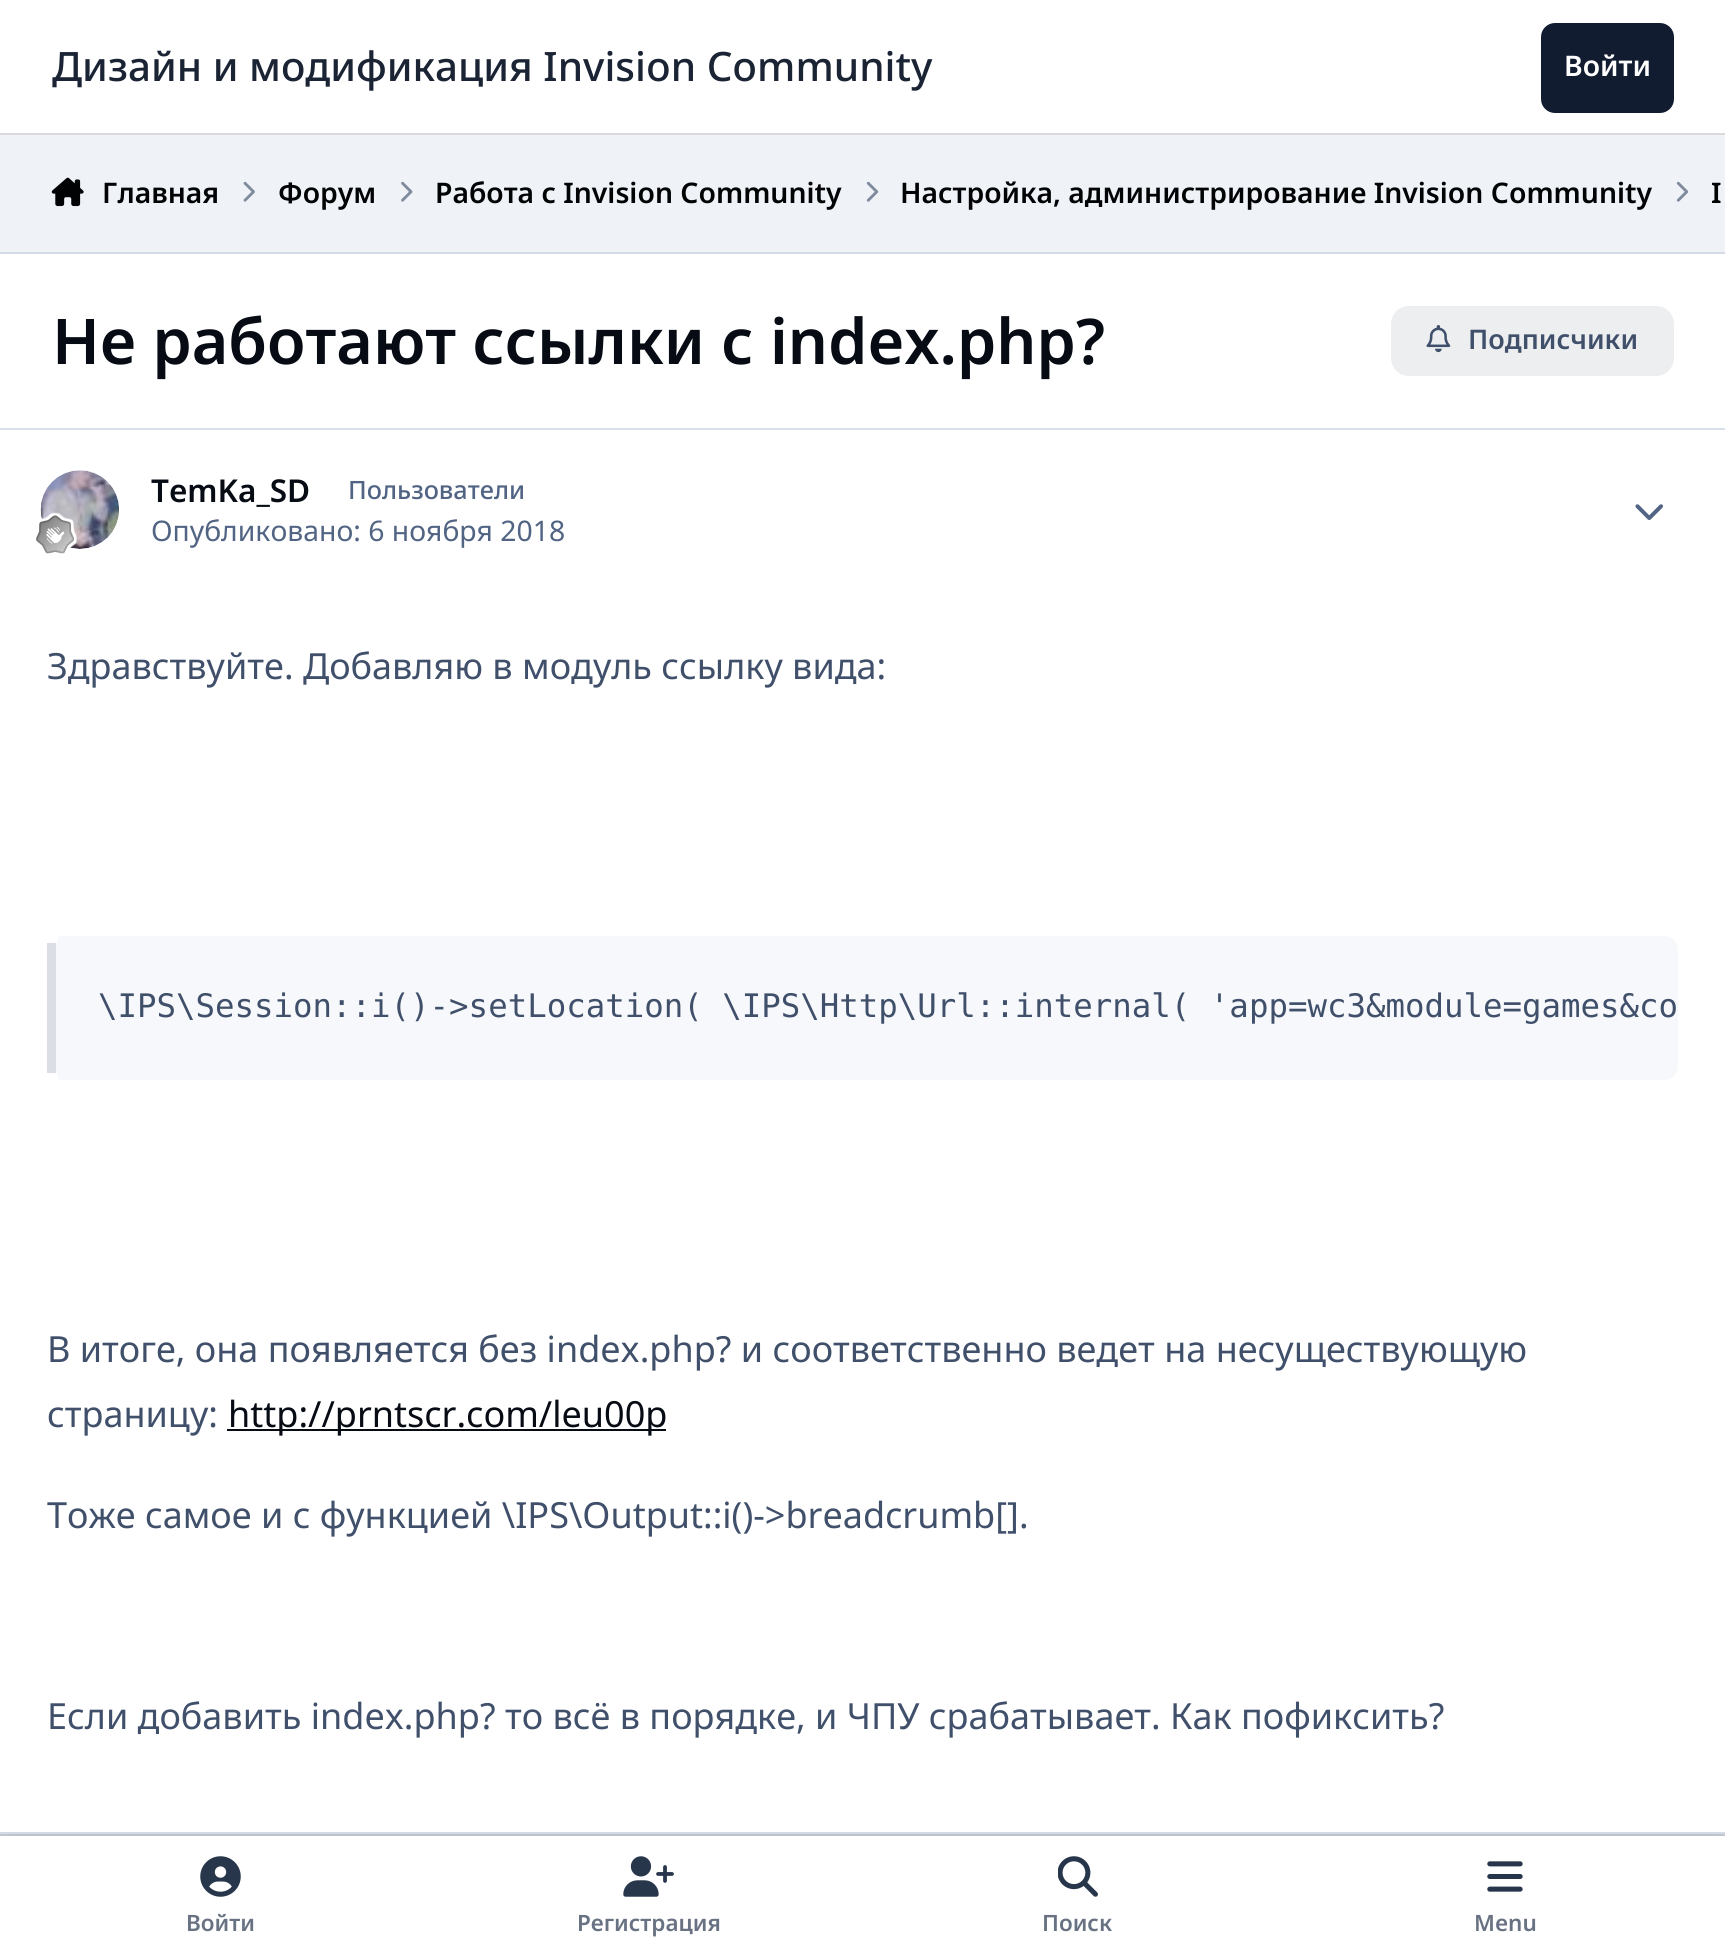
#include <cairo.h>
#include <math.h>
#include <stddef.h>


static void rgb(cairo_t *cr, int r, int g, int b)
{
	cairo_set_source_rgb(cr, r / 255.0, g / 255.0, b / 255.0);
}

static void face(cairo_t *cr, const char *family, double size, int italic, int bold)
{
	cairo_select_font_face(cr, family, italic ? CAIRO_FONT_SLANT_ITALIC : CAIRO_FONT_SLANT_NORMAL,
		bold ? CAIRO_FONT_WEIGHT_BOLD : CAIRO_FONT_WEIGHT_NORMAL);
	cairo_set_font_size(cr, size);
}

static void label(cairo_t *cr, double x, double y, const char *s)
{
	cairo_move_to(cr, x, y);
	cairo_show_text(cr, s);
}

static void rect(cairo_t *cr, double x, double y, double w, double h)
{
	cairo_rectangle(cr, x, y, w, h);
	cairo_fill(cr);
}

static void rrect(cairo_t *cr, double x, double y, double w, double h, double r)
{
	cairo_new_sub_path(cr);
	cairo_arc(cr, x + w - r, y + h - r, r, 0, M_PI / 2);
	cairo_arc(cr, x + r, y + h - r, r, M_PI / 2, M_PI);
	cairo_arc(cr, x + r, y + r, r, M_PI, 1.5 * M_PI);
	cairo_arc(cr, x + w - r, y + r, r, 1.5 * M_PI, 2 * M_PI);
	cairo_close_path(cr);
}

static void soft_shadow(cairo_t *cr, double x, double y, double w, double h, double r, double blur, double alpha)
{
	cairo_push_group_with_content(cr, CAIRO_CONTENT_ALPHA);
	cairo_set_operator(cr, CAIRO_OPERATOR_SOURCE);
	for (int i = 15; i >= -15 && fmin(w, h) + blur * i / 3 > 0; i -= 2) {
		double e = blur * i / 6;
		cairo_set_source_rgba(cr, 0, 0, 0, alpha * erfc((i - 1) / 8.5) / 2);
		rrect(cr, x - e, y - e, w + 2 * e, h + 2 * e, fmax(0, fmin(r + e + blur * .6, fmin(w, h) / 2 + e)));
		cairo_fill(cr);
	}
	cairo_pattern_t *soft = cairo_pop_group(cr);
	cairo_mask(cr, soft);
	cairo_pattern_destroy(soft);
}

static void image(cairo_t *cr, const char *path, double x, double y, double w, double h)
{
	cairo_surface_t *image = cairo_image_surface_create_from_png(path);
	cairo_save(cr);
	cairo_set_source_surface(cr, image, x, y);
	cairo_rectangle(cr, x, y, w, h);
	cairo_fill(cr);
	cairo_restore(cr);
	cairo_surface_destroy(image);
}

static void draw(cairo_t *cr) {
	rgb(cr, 239, 242, 247);
	cairo_paint(cr);
	rgb(cr, 255, 255, 255);
	rect(cr, 0, 0, 1725, 133);
	rgb(cr, 218, 218, 220);
	rect(cr, 0, 133, 1725, 2);
	face(cr, "Noto Sans Medium", 40.5, 0, 0);
	rgb(cr, 27, 36, 52);
	label(cr, 52, 81, "Дизайн и модификация Invision Community");
	rgb(cr, 17, 28, 49);
	rrect(cr, 1541, 23, 133, 90, 14);
	cairo_fill(cr);
	face(cr, "Noto Sans SemiBold", 28.35, 0, 0);
	rgb(cr, 255, 255, 255);
	label(cr, 1564, 76, "Войти");
	image(cr, "image0.png", 51, 177, 33, 30);
	rgb(cr, 2, 3, 5);
	label(cr, 102, 203, "Главная");
	image(cr, "image1.png", 243, 181, 12, 21);
	label(cr, 278, 203, "Форум");
	image(cr, "image2.png", 401, 181, 12, 21);
	label(cr, 435, 203, "Работа с Invision Community");
	image(cr, "image3.png", 866, 181, 13, 21);
	label(cr, 900, 203, "Настройка, администрирование Invision Community");
	image(cr, "image3.png", 1676, 181, 13, 21);
	label(cr, 1711, 203, "I");
	rgb(cr, 1, 3, 10);
	soft_shadow(cr, 7, 272, 1712, 1569, 0, 8, 0.05);
	rgb(cr, 255, 255, 255);
	rect(cr, 0, 254, 1725, 1578);
	rgb(cr, 213, 219, 230);
	rect(cr, 0, 252, 1725, 2);
	rect(cr, 0, 1832, 1725, 2);
	rgb(cr, 215, 223, 234);
	rect(cr, 0, 428, 1725, 2);
	face(cr, "Noto Sans SemiBold", 63, 0, 0);
	rgb(cr, 6, 11, 20);
	label(cr, 52, 364, "Не работают ссылки с index.php?");
	rgb(cr, 236, 238, 240);
	rrect(cr, 1391, 306, 283, 70, 18);
	cairo_fill(cr);
	image(cr, "image4.png", 1426, 325, 25, 28);
	face(cr, "Noto Sans SemiBold", 27, 0, 0);
	rgb(cr, 64, 80, 107);
	label(cr, 1468, 349, "Подписчики");
	rgb(cr, 229, 234, 242);
	rrect(cr, 41, 470, 78, 79, 39);
	cairo_fill(cr);
	image(cr, "image5.png", 40, 470, 79, 79);
	image(cr, "image6.png", 36, 512, 41, 42);
	face(cr, "Noto Sans SemiBold", 31.5, 0, 0);
	rgb(cr, 6, 11, 20);
	label(cr, 151, 502, "TemKa_SD");
	face(cr, "Noto Sans Medium", 25.25, 0, 0);
	rgb(cr, 81, 100, 131);
	label(cr, 348, 499, "Пользователи");
	face(cr, "Noto Sans", 28.35, 0, 0);
	label(cr, 151, 541, "Опубликовано: 6 ноября 2018");
	image(cr, "image7.png", 1635, 504, 28, 16);
	face(cr, "Noto Sans", 36, 0, 0);
	rgb(cr, 64, 80, 107);
	label(cr, 47, 679, "Здравствуйте. Добавляю в модуль ссылку вида:");
	rgb(cr, 247, 248, 251);
	cairo_new_path(cr);
	cairo_move_to(cr, 61, 936);
	cairo_line_to(cr, 1665, 936);
	cairo_curve_to(cr, 1672, 936, 1678, 942, 1678, 950);
	cairo_line_to(cr, 1678, 1066);
	cairo_curve_to(cr, 1678, 1074, 1672, 1080, 1665, 1080);
	cairo_line_to(cr, 61, 1080);
	cairo_curve_to(cr, 58, 1080, 56, 1074, 56, 1066);
	cairo_line_to(cr, 56, 950);
	cairo_curve_to(cr, 56, 942, 58, 936, 61, 936);
	cairo_close_path(cr);
	cairo_fill(cr);
	rgb(cr, 219, 223, 229);
	rect(cr, 47, 943, 9, 130);
	face(cr, "DejaVu Sans Mono", 32.4, 0, 0);
	rgb(cr, 64, 80, 107);
	label(cr, 98, 1017, "\\IPS\\Session::i()->setLocation( \\IPS\\Http\\Url::internal( 'app=wc3&module=games&co");
	face(cr, "Noto Sans", 36, 0, 0);
	label(cr, 47, 1362, "В итоге, она появляется без index.php? и соответственно ведет на несуществующую");
	label(cr, 47, 1427, "страницу:");
	rgb(cr, 6, 11, 20);
	rect(cr, 227, 1429, 439, 2);
	label(cr, 228, 1427, "http://prntscr.com/leu00p");
	rgb(cr, 64, 80, 107);
	label(cr, 47, 1528, "Тоже самое и с функцией \\IPS\\Output::i()->breadcrumb[].");
	label(cr, 47, 1729, "Если добавить index.php? то всё в порядке, и ЧПУ срабатывает. Как пофиксить?");
	cairo_set_source_rgba(cr, 0.251, 0.314, 0.42, 0.25);
	cairo_new_path(cr);
	cairo_move_to(cr, 0, 1834);
	cairo_line_to(cr, 0, 1836);
	cairo_line_to(cr, 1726, 1836);
	cairo_line_to(cr, 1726, 1958);
	cairo_line_to(cr, 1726, 1834);
	cairo_close_path(cr);
	cairo_fill(cr);
	rgb(cr, 255, 255, 255);
	rect(cr, 0, 1836, 1725, 123);
	image(cr, "image8.png", 200, 1856, 41, 41);
	face(cr, "Noto Sans SemiBold", 22.5, 0, 0);
	rgb(cr, 105, 114, 130);
	label(cr, 186, 1931, "Войти");
	image(cr, "image9.png", 623, 1856, 51, 41);
	label(cr, 577, 1931, "Регистрация");
	image(cr, "image10.png", 1058, 1856, 40, 41);
	label(cr, 1042, 1931, "Поиск");
	image(cr, "image11.png", 1487, 1861, 36, 31);
	label(cr, 1474, 1931, "Menu");
}

int main(void) {
	cairo_surface_t *surface = cairo_image_surface_create(CAIRO_FORMAT_RGB24, 1725, 1959);
	cairo_t *cr = cairo_create(surface);
	cairo_font_options_t *options = cairo_font_options_create();
	cairo_font_options_set_hint_metrics(options, CAIRO_HINT_METRICS_OFF);
	cairo_font_options_set_hint_style(options, CAIRO_HINT_STYLE_NONE);
	cairo_set_font_options(cr, options);
	cairo_set_miter_limit(cr, 4);
	draw(cr);
	cairo_surface_write_to_png(surface, "render.png");
	cairo_font_options_destroy(options);
	cairo_destroy(cr);
	cairo_surface_destroy(surface);
	return 0;
}
